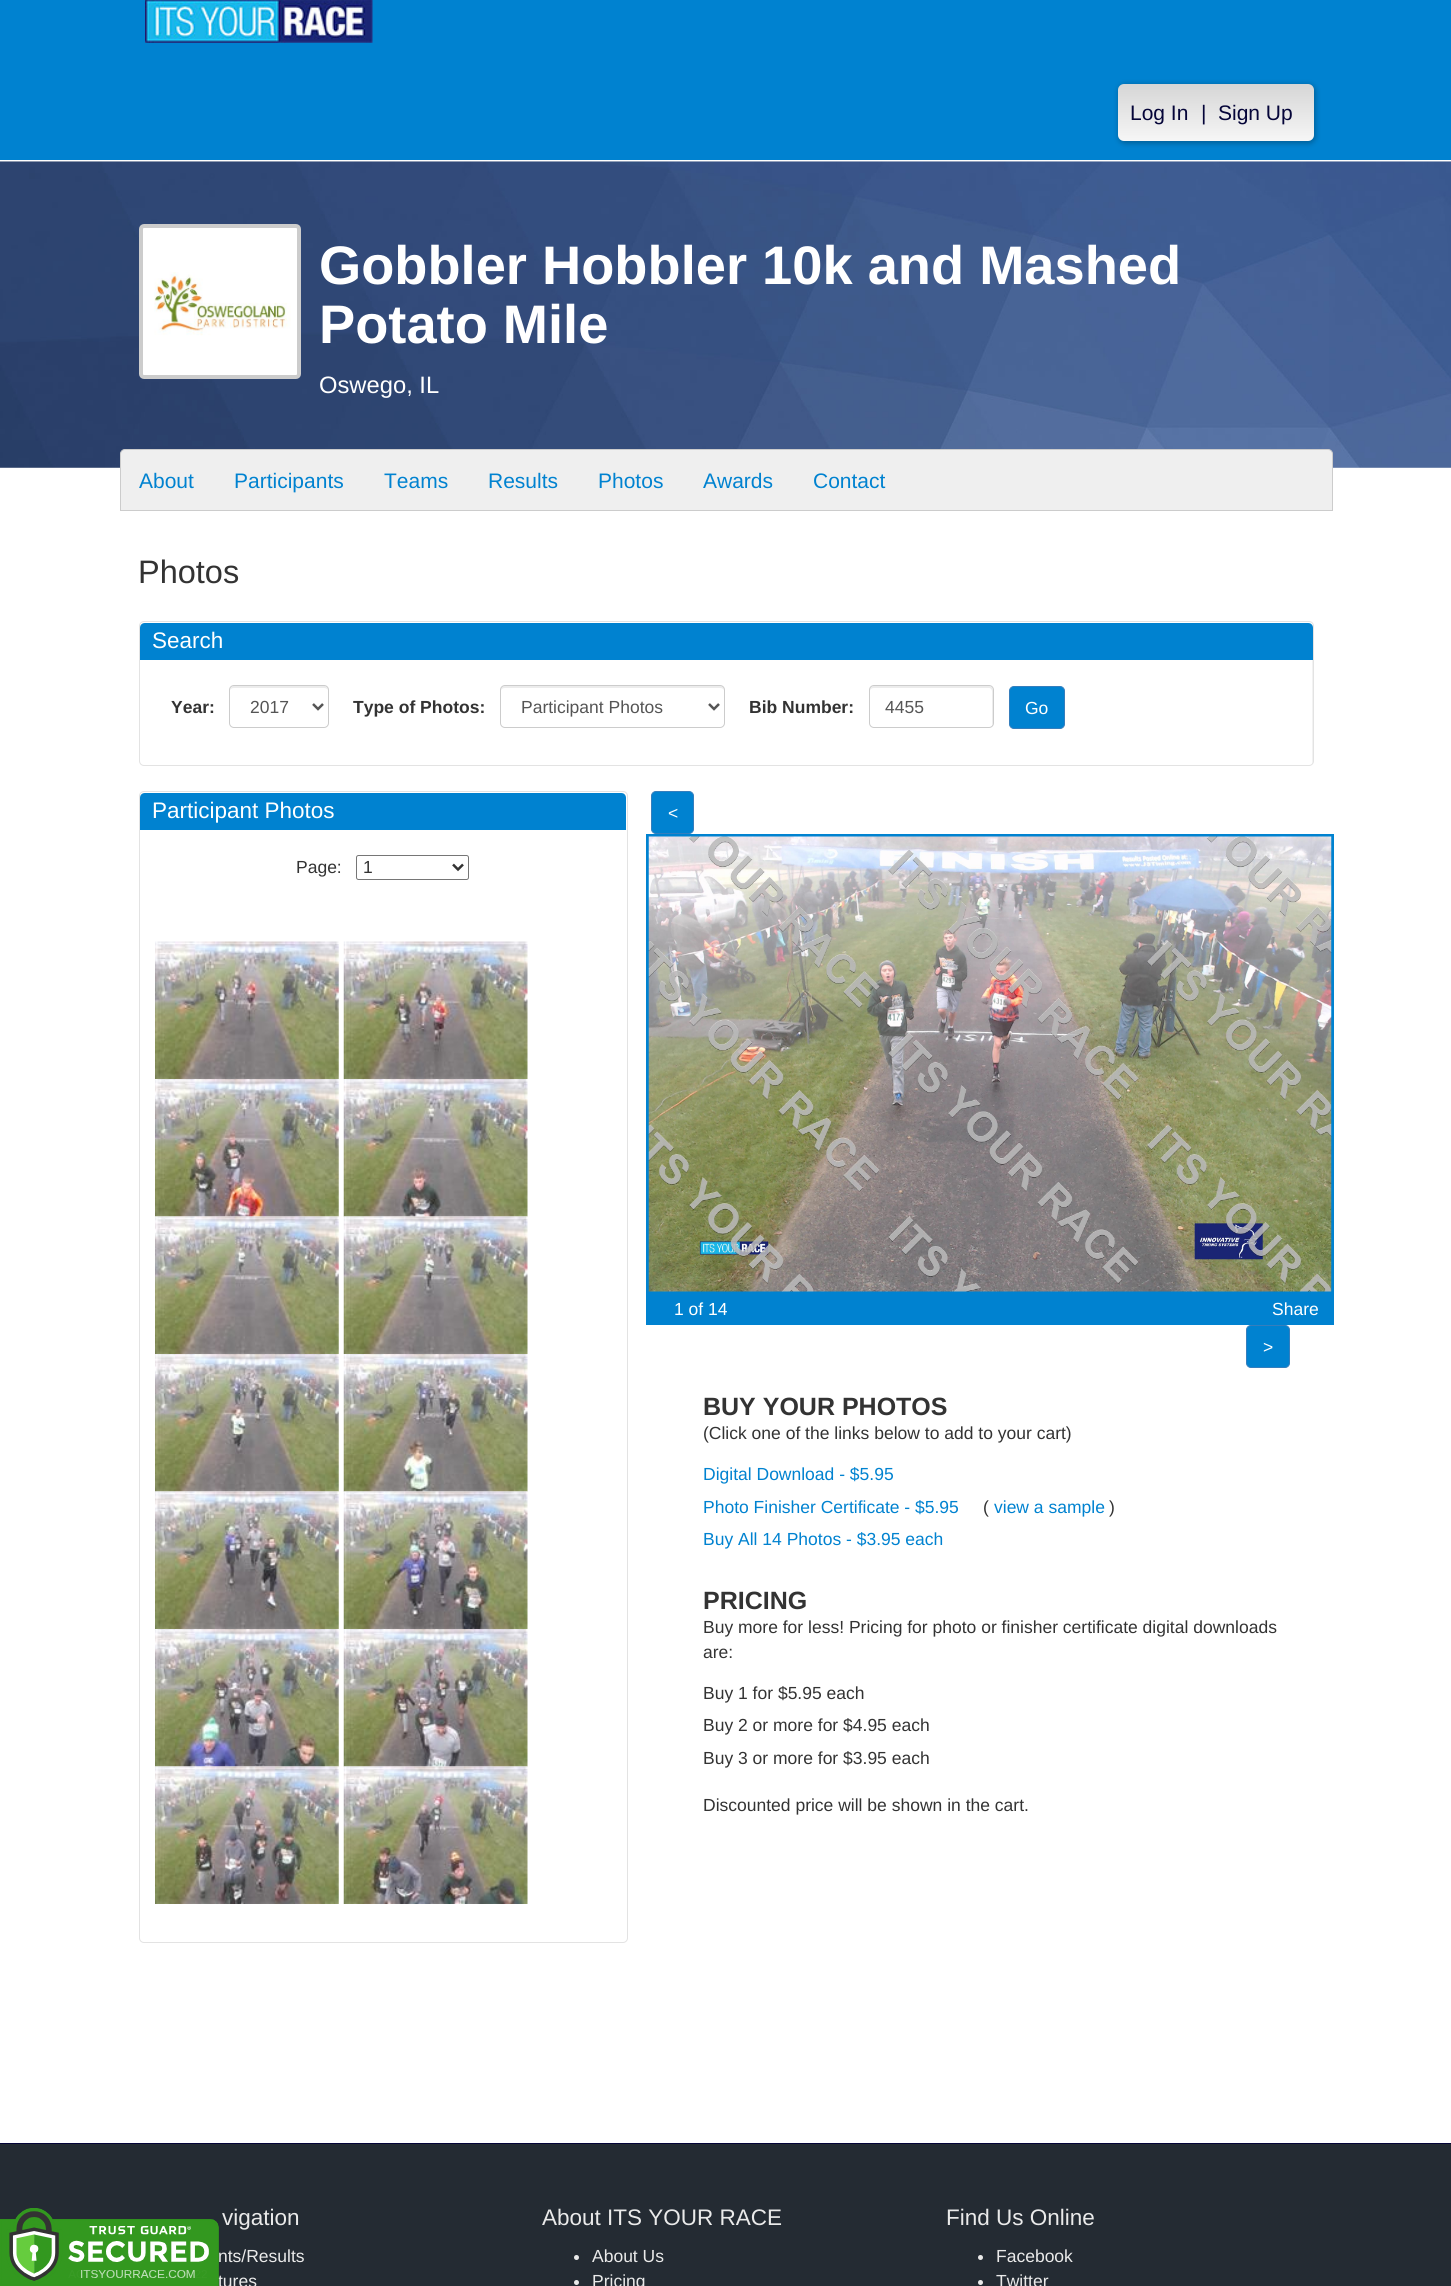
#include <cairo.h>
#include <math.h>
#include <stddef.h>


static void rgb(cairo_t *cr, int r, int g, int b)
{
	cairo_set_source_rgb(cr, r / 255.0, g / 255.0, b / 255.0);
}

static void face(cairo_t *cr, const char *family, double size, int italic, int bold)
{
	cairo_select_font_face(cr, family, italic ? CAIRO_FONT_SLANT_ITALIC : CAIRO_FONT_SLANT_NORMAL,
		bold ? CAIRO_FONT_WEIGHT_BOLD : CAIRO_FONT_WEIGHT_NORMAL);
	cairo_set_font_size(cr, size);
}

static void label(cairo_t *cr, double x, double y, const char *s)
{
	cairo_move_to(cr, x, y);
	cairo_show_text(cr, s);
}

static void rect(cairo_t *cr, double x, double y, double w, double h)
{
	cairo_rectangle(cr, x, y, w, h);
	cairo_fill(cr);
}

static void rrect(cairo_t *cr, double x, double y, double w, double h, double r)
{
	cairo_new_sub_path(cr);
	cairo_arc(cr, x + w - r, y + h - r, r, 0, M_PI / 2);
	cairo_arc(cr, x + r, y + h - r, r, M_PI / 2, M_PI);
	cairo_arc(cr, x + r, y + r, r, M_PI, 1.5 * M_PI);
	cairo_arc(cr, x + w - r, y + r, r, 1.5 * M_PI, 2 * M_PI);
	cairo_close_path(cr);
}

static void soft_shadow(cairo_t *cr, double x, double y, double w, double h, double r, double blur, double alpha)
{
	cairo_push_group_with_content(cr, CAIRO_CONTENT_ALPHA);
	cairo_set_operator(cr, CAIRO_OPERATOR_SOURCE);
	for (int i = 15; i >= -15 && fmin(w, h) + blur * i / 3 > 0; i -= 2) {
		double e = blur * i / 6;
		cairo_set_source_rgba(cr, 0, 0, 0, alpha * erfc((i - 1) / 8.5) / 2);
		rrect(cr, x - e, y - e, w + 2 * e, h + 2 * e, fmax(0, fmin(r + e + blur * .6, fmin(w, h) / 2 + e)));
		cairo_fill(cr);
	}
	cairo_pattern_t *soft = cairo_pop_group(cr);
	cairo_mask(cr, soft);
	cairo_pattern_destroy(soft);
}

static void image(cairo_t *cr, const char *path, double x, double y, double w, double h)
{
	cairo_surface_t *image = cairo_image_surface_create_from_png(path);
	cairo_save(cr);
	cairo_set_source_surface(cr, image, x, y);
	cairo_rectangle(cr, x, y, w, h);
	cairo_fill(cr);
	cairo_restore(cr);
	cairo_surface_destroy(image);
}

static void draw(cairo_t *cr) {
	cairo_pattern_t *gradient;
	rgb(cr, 255, 255, 255);
	cairo_paint(cr);
	rgb(cr, 36, 43, 51);
	rect(cr, 0, 2144, 1451, 142);
	face(cr, "Liberation Sans", 17.5, 0, 0);
	rgb(cr, 234, 234, 234);
	label(cr, 218, 2287, "tures");
	image(cr, "image0.png", 0, 2208, 219, 78);
	rgb(cr, 0, 130, 208);
	rect(cr, 0, 0, 1451, 160);
	image(cr, "image1.png", 145, 0, 228, 43);
	rgb(cr, 0, 0, 0);
	soft_shadow(cr, 1119, 85, 196, 58, 6, 3, 0.3);
	gradient = cairo_pattern_create_linear(1216, 84, 1216, 141);
	cairo_pattern_add_color_stop_rgba(gradient, 0, 0.839, 0.839, 0.839, 1);
	cairo_pattern_add_color_stop_rgba(gradient, 1, 0.965, 0.965, 0.965, 1);
	cairo_set_source(cr, gradient);
	cairo_pattern_destroy(gradient);
	rrect(cr, 1118, 84, 196, 57, 6);
	cairo_fill(cr);
	face(cr, "Liberation Sans", 21, 0, 0);
	rgb(cr, 4, 4, 56);
	label(cr, 1130, 120, "Log In");
	label(cr, 1201, 120, "|");
	label(cr, 1218, 120, "Sign Up");
	rgb(cr, 238, 238, 238);
	rect(cr, 0, 161, 1451, 307);
	image(cr, "image2.png", 0, 161, 1451, 307);
	rgb(cr, 255, 255, 255);
	rrect(cr, 141, 226, 158, 151, 3);
	cairo_fill_preserve(cr);
	rgb(cr, 204, 204, 204);
	cairo_set_line_width(cr, 4);
	cairo_stroke(cr);
	image(cr, "image3.png", 154, 272, 137, 64);
	face(cr, "Liberation Sans", 54.25, 0, 1);
	rgb(cr, 255, 255, 255);
	label(cr, 319, 284, "Gobbler Hobbler 10k and Mashed");
	label(cr, 319, 343, "Potato Mile");
	face(cr, "Liberation Sans", 23.75, 0, 0);
	label(cr, 319, 393, "Oswego, IL");
	rgb(cr, 239, 239, 239);
	cairo_new_path(cr);
	cairo_move_to(cr, 125, 449.5);
	cairo_line_to(cr, 1328, 449.5);
	cairo_curve_to(cr, 1330.5, 449.5, 1332.5, 451.5, 1332.5, 454);
	cairo_line_to(cr, 1332.5, 510.5);
	cairo_line_to(cr, 120.5, 510.5);
	cairo_line_to(cr, 120.5, 454);
	cairo_curve_to(cr, 120.5, 451.5, 122.5, 449.5, 125, 449.5);
	cairo_close_path(cr);
	cairo_fill_preserve(cr);
	rgb(cr, 204, 204, 204);
	cairo_set_line_width(cr, 1);
	cairo_stroke(cr);
	face(cr, "Liberation Sans", 21, 0, 0);
	rgb(cr, 0, 130, 208);
	label(cr, 139, 488, "About");
	label(cr, 234, 488, "Participants");
	label(cr, 384, 488, "Teams");
	label(cr, 488, 488, "Results");
	label(cr, 598, 488, "Photos");
	label(cr, 703, 488, "Awards");
	label(cr, 813, 488, "Contact");
	face(cr, "Liberation Sans", 32.5, 0, 0);
	rgb(cr, 51, 51, 51);
	label(cr, 138, 583, "Photos");
	rgb(cr, 242, 242, 242);
	cairo_new_path(cr);
	cairo_move_to(cr, 144, 624);
	cairo_line_to(cr, 1309, 624);
	cairo_curve_to(cr, 1311, 624, 1312, 625, 1312, 628);
	cairo_line_to(cr, 1312, 764);
	cairo_curve_to(cr, 1313, 763, 1313, 762, 1313, 761);
	cairo_line_to(cr, 1313, 627);
	cairo_curve_to(cr, 1313, 625, 1311, 623, 1309, 623);
	cairo_line_to(cr, 144, 623);
	cairo_curve_to(cr, 142, 623, 140, 625, 140, 627);
	cairo_line_to(cr, 140, 628);
	cairo_curve_to(cr, 140, 625, 142, 624, 144, 624);
	cairo_close_path(cr);
	cairo_fill(cr);
	rrect(cr, 139.5, 621.5, 1174, 144, 4.5);
	rgb(cr, 227, 227, 227);
	cairo_stroke(cr);
	rgb(cr, 0, 130, 208);
	cairo_new_path(cr);
	cairo_move_to(cr, 145, 623);
	cairo_line_to(cr, 1308, 623);
	cairo_curve_to(cr, 1311, 623, 1313, 625, 1313, 628);
	cairo_line_to(cr, 1313, 660);
	cairo_line_to(cr, 140, 660);
	cairo_line_to(cr, 140, 628);
	cairo_curve_to(cr, 140, 625, 142, 623, 145, 623);
	cairo_close_path(cr);
	cairo_fill(cr);
	face(cr, "Liberation Sans", 22.5, 0, 0);
	rgb(cr, 255, 255, 255);
	label(cr, 152, 648, "Search");
	face(cr, "Liberation Sans", 17.5, 0, 1);
	rgb(cr, 51, 51, 51);
	label(cr, 171, 713, "Year:");
	rgb(cr, 236, 236, 236);
	cairo_new_path(cr);
	cairo_move_to(cr, 234, 688);
	cairo_line_to(cr, 324, 688);
	cairo_curve_to(cr, 326, 688, 328, 689, 328, 691);
	cairo_curve_to(cr, 328, 682, 313, 686, 309, 686);
	cairo_line_to(cr, 249, 686);
	cairo_curve_to(cr, 245, 686, 230, 682, 230, 691);
	cairo_curve_to(cr, 230, 689, 232, 688, 234, 688);
	cairo_close_path(cr);
	cairo_fill(cr);
	rrect(cr, 229.5, 685.5, 99, 42, 4.5);
	rgb(cr, 204, 204, 204);
	cairo_stroke(cr);
	cairo_new_path(cr);
	cairo_move_to(cr, 313, 704);
	cairo_line_to(cr, 318, 709);
	cairo_line_to(cr, 323, 704);
	rgb(cr, 85, 85, 85);
	cairo_set_line_width(cr, 2.5);
	cairo_stroke(cr);
	face(cr, "Liberation Sans", 17.5, 0, 0);
	label(cr, 250, 713, "2017");
	face(cr, "Liberation Sans", 17.5, 0, 1);
	rgb(cr, 51, 51, 51);
	label(cr, 353, 713, "Type of Photos:");
	rgb(cr, 236, 236, 236);
	cairo_new_path(cr);
	cairo_move_to(cr, 505, 688);
	cairo_line_to(cr, 720, 688);
	cairo_curve_to(cr, 722, 688, 724, 689, 724, 691);
	cairo_curve_to(cr, 724, 688, 723, 686, 720, 686);
	cairo_line_to(cr, 505, 686);
	cairo_curve_to(cr, 502, 686, 501, 688, 501, 691);
	cairo_curve_to(cr, 501, 689, 503, 688, 505, 688);
	cairo_close_path(cr);
	cairo_fill(cr);
	rrect(cr, 500.5, 685.5, 224, 42, 4.5);
	rgb(cr, 204, 204, 204);
	cairo_set_line_width(cr, 1);
	cairo_stroke(cr);
	cairo_new_path(cr);
	cairo_move_to(cr, 709, 704);
	cairo_line_to(cr, 714, 709);
	cairo_line_to(cr, 719, 704);
	rgb(cr, 85, 85, 85);
	cairo_set_line_width(cr, 2.5);
	cairo_stroke(cr);
	face(cr, "Liberation Sans", 17.5, 0, 0);
	label(cr, 521, 713, "Participant Photos");
	face(cr, "Liberation Sans", 17.5, 0, 1);
	rgb(cr, 51, 51, 51);
	label(cr, 749, 713, "Bib Number:");
	rgb(cr, 236, 236, 236);
	cairo_new_path(cr);
	cairo_move_to(cr, 874, 688);
	cairo_line_to(cr, 989, 688);
	cairo_curve_to(cr, 993, 688, 992, 694, 992, 696);
	cairo_line_to(cr, 992, 725);
	cairo_curve_to(cr, 993, 724, 993, 723, 993, 722);
	cairo_line_to(cr, 993, 690);
	cairo_curve_to(cr, 993, 688, 991, 686, 989, 686);
	cairo_line_to(cr, 874, 686);
	cairo_curve_to(cr, 872, 686, 870, 688, 870, 690);
	cairo_line_to(cr, 870, 691);
	cairo_curve_to(cr, 870, 689, 872, 688, 874, 688);
	cairo_close_path(cr);
	cairo_fill(cr);
	rrect(cr, 869.5, 685.5, 124, 42, 4.5);
	rgb(cr, 204, 204, 204);
	cairo_set_line_width(cr, 1);
	cairo_stroke(cr);
	face(cr, "Liberation Sans", 17.5, 0, 0);
	rgb(cr, 85, 85, 85);
	label(cr, 885, 713, "4455");
	rgb(cr, 0, 130, 208);
	rrect(cr, 1009.5, 686.5, 55, 42, 4.5);
	cairo_fill_preserve(cr);
	rgb(cr, 53, 126, 189);
	cairo_stroke(cr);
	rgb(cr, 255, 255, 255);
	label(cr, 1025, 714, "Go");
	rgb(cr, 242, 242, 242);
	cairo_new_path(cr);
	cairo_move_to(cr, 144, 794);
	cairo_line_to(cr, 622, 794);
	cairo_curve_to(cr, 625, 794, 626, 795, 626, 798);
	cairo_curve_to(cr, 626, 795, 625, 793, 622, 793);
	cairo_line_to(cr, 144, 793);
	cairo_curve_to(cr, 141, 793, 140, 795, 140, 798);
	cairo_curve_to(cr, 140, 795, 142, 794, 144, 794);
	cairo_close_path(cr);
	cairo_fill(cr);
	rrect(cr, 139.5, 791.5, 488, 1151, 4.5);
	rgb(cr, 227, 227, 227);
	cairo_stroke(cr);
	rgb(cr, 0, 130, 208);
	cairo_new_path(cr);
	cairo_move_to(cr, 145, 793);
	cairo_line_to(cr, 621, 793);
	cairo_curve_to(cr, 624, 793, 626, 795, 626, 798);
	cairo_line_to(cr, 626, 830);
	cairo_line_to(cr, 140, 830);
	cairo_line_to(cr, 140, 798);
	cairo_curve_to(cr, 140, 795, 142, 793, 145, 793);
	cairo_close_path(cr);
	cairo_fill(cr);
	face(cr, "Liberation Sans", 22.5, 0, 0);
	rgb(cr, 255, 255, 255);
	label(cr, 152, 818, "Participant Photos");
	face(cr, "Liberation Sans", 17.5, 0, 0);
	rgb(cr, 51, 51, 51);
	label(cr, 296, 873, "Page:");
	rrect(cr, 356.5, 855.5, 112, 24, 2);
	rgb(cr, 118, 118, 118);
	cairo_stroke(cr);
	cairo_new_path(cr);
	cairo_move_to(cr, 453, 864.5);
	cairo_line_to(cr, 458, 869.5);
	cairo_line_to(cr, 463, 864.5);
	rgb(cr, 51, 51, 51);
	cairo_set_line_width(cr, 2.5);
	cairo_stroke(cr);
	label(cr, 363, 873, "1");
	image(cr, "image4.png", 155, 941, 184, 138);
	image(cr, "image5.png", 343, 941, 185, 138);
	image(cr, "image6.png", 155, 1079, 184, 138);
	image(cr, "image7.png", 343, 1079, 185, 138);
	image(cr, "image8.png", 155, 1216, 184, 138);
	image(cr, "image9.png", 343, 1216, 185, 138);
	image(cr, "image10.png", 155, 1354, 184, 138);
	image(cr, "image11.png", 343, 1354, 185, 138);
	image(cr, "image12.png", 155, 1491, 184, 138);
	image(cr, "image13.png", 343, 1491, 185, 138);
	image(cr, "image14.png", 155, 1629, 184, 138);
	image(cr, "image15.png", 343, 1629, 185, 138);
	image(cr, "image16.png", 155, 1766, 184, 138);
	image(cr, "image17.png", 343, 1766, 185, 138);
	rgb(cr, 0, 130, 208);
	rrect(cr, 651.5, 791.5, 42, 42, 4.5);
	cairo_fill_preserve(cr);
	rgb(cr, 53, 126, 189);
	cairo_set_line_width(cr, 1);
	cairo_stroke(cr);
	rgb(cr, 255, 255, 255);
	label(cr, 668, 819, "<");
	cairo_rectangle(cr, 647.5, 835.5, 685, 457);
	rgb(cr, 0, 130, 208);
	cairo_set_line_width(cr, 3);
	cairo_stroke(cr);
	image(cr, "image18.png", 648, 836, 684, 456);
	rect(cr, 646, 1294, 688, 31);
	rgb(cr, 255, 255, 255);
	label(cr, 674, 1315, "1 of 14");
	label(cr, 1272, 1315, "Share");
	rgb(cr, 0, 130, 208);
	rrect(cr, 1246.5, 1325.5, 43, 42, 4.5);
	cairo_fill_preserve(cr);
	rgb(cr, 53, 126, 189);
	cairo_set_line_width(cr, 1);
	cairo_stroke(cr);
	rgb(cr, 255, 255, 255);
	label(cr, 1263, 1353, ">");
	face(cr, "Liberation Sans", 25, 0, 1);
	rgb(cr, 51, 51, 51);
	label(cr, 703, 1415, "BUY YOUR PHOTOS");
	face(cr, "Liberation Sans", 17.5, 0, 0);
	label(cr, 703, 1439, "(Click one of the links below to add to your cart)");
	rgb(cr, 0, 130, 208);
	label(cr, 703, 1480, "Digital Download - $5.95");
	label(cr, 703, 1513, "Photo Finisher Certificate - $5.95");
	rgb(cr, 51, 51, 51);
	label(cr, 983, 1513, "(");
	rgb(cr, 0, 130, 208);
	label(cr, 994, 1513, "view a sample");
	rgb(cr, 51, 51, 51);
	label(cr, 1109, 1513, ")");
	rgb(cr, 0, 130, 208);
	label(cr, 703, 1545, "Buy All 14 Photos - $3.95 each");
	face(cr, "Liberation Sans", 25, 0, 1);
	rgb(cr, 51, 51, 51);
	label(cr, 703, 1609, "PRICING");
	face(cr, "Liberation Sans", 17.5, 0, 0);
	label(cr, 703, 1633, "Buy more for less! Pricing for photo or finisher certificate digital downloads");
	label(cr, 703, 1658, "are:");
	label(cr, 703, 1699, "Buy 1 for $5.95 each");
	label(cr, 703, 1731, "Buy 2 or more for $4.95 each");
	label(cr, 703, 1764, "Buy 3 or more for $3.95 each");
	label(cr, 703, 1811, "Discounted price will be shown in the cart.");
	rgb(cr, 4, 4, 56);
	rect(cr, 0, 2143, 1451, 1);
	face(cr, "Liberation Sans", 22.5, 0, 0);
	rgb(cr, 234, 234, 234);
	label(cr, 222, 2225, "vigation");
	face(cr, "Liberation Sans", 17.5, 0, 0);
	label(cr, 218, 2262, "nts/Results");
	face(cr, "Liberation Sans", 22.5, 0, 0);
	label(cr, 542, 2225, "About ITS YOUR RACE");
	cairo_new_path(cr);
	cairo_arc(cr, 576.5, 2257.5, 2.5, 0, 2 * M_PI);
	cairo_fill(cr);
	face(cr, "Liberation Sans", 17.5, 0, 0);
	label(cr, 592, 2262, "About Us");
	cairo_new_path(cr);
	cairo_arc(cr, 576.5, 2282.5, 2.5, 0, 2 * M_PI);
	cairo_fill(cr);
	label(cr, 592, 2287, "Pricing");
	face(cr, "Liberation Sans", 22.5, 0, 0);
	label(cr, 946, 2225, "Find Us Online");
	cairo_new_path(cr);
	cairo_arc(cr, 980.5, 2257.5, 2.5, 0, 2 * M_PI);
	cairo_fill(cr);
	face(cr, "Liberation Sans", 17.5, 0, 0);
	label(cr, 996, 2262, "Facebook");
	cairo_new_path(cr);
	cairo_arc(cr, 980.5, 2282.5, 2.5, 0, 2 * M_PI);
	cairo_fill(cr);
	label(cr, 996, 2287, "Twitter");
}

int main(void) {
	cairo_surface_t *surface = cairo_image_surface_create(CAIRO_FORMAT_RGB24, 1451, 2286);
	cairo_t *cr = cairo_create(surface);
	cairo_font_options_t *options = cairo_font_options_create();
	cairo_font_options_set_hint_metrics(options, CAIRO_HINT_METRICS_OFF);
	cairo_font_options_set_hint_style(options, CAIRO_HINT_STYLE_NONE);
	cairo_set_font_options(cr, options);
	cairo_set_miter_limit(cr, 4);
	draw(cr);
	cairo_surface_write_to_png(surface, "render.png");
	cairo_font_options_destroy(options);
	cairo_destroy(cr);
	cairo_surface_destroy(surface);
	return 0;
}
